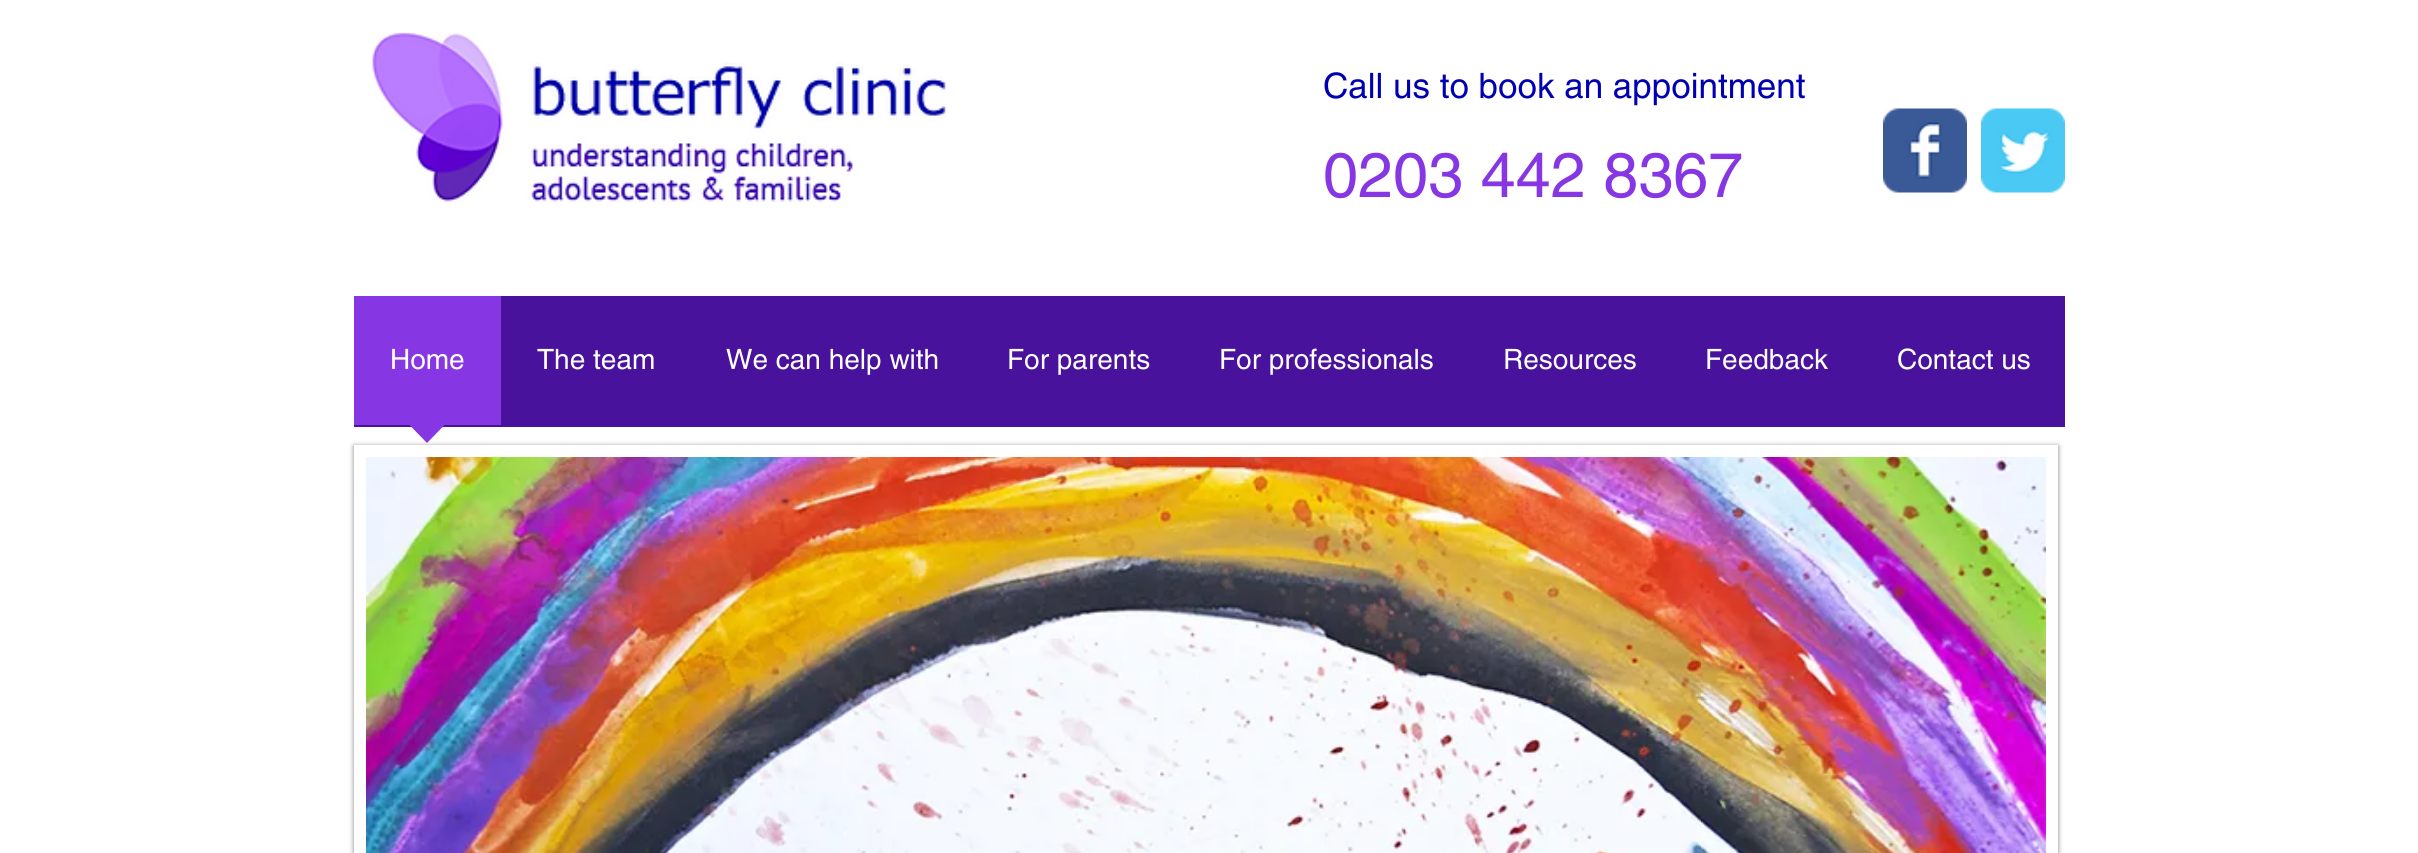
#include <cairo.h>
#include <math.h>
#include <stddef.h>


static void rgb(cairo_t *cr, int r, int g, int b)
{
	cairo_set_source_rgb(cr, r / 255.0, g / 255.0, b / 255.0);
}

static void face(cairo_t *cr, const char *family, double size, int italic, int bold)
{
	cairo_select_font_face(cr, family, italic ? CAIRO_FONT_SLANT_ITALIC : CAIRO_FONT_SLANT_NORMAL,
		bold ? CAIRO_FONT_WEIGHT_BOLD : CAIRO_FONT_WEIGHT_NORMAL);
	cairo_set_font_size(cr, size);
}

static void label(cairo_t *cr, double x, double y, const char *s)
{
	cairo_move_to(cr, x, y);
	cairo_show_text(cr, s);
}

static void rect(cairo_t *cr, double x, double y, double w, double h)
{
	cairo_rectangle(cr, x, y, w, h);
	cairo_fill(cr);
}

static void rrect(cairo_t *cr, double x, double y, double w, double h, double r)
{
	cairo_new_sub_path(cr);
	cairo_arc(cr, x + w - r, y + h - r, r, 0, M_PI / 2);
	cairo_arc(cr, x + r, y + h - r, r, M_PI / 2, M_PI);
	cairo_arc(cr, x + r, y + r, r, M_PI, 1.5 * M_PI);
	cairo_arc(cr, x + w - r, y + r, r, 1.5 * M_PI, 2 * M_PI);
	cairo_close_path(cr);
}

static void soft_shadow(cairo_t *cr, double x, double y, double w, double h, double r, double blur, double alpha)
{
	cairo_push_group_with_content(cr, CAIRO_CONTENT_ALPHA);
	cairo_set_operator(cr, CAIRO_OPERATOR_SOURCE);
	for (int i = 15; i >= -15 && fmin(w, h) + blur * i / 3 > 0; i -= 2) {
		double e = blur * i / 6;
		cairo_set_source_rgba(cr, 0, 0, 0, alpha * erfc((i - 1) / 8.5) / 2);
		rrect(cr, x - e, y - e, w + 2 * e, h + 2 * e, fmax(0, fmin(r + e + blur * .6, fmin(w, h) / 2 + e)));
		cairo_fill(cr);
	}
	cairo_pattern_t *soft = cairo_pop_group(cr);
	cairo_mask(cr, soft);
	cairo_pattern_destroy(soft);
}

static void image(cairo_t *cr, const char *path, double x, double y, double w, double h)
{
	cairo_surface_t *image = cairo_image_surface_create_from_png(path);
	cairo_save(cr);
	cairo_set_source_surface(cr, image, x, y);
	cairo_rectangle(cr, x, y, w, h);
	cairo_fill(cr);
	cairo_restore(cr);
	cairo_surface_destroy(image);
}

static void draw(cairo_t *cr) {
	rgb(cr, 255, 255, 255);
	cairo_paint(cr);
	image(cr, "image0.png", 372, 32, 574, 171);
	face(cr, "helvetica", 35, 0, 0);
	rgb(cr, 0, 0, 178);
	label(cr, 1323, 98, "Call us to book an appointment");
	face(cr, "helvetica", 63, 0, 0);
	rgb(cr, 134, 55, 227);
	label(cr, 1323, 197, "0203 442 8367");
	image(cr, "image1.png", 1883, 108, 84, 85);
	image(cr, "image2.png", 1981, 108, 84, 85);
	rgb(cr, 73, 18, 157);
	rect(cr, 354, 296, 1711, 131);
	rgb(cr, 134, 55, 227);
	rect(cr, 354, 296, 147, 129);
	face(cr, "helvetica", 28, 0, 0);
	rgb(cr, 255, 255, 255);
	label(cr, 390, 369, "Home");
	rgb(cr, 134, 55, 227);
	cairo_new_path(cr);
	cairo_move_to(cr, 409.5, 425);
	cairo_line_to(cr, 444.5, 425);
	cairo_line_to(cr, 427, 443);
	cairo_close_path(cr);
	cairo_fill(cr);
	rgb(cr, 255, 255, 255);
	label(cr, 537, 369, "The team");
	label(cr, 726, 369, "We can help with");
	label(cr, 1007, 369, "For parents");
	label(cr, 1219, 369, "For professionals");
	label(cr, 1503, 369, "Resources");
	label(cr, 1705, 369, "Feedback");
	label(cr, 1897, 369, "Contact us");
	cairo_save(cr);
	cairo_set_fill_rule(cr, CAIRO_FILL_RULE_EVEN_ODD);
	cairo_new_path(cr);
	cairo_move_to(cr, 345, 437);
	cairo_line_to(cr, 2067, 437);
	cairo_line_to(cr, 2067, 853);
	cairo_line_to(cr, 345, 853);
	cairo_close_path(cr);
	cairo_move_to(cr, 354, 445);
	cairo_line_to(cr, 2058, 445);
	cairo_line_to(cr, 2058, 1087);
	cairo_line_to(cr, 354, 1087);
	cairo_close_path(cr);
	cairo_clip(cr);
	rgb(cr, 0, 0, 0);
	soft_shadow(cr, 354, 446, 1704, 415, 0, 2.5, 0.5);
	cairo_restore(cr);
	image(cr, "image3.png", 366, 457, 1680, 396);
}

int main(void) {
	cairo_surface_t *surface = cairo_image_surface_create(CAIRO_FORMAT_RGB24, 2418, 853);
	cairo_t *cr = cairo_create(surface);
	cairo_font_options_t *options = cairo_font_options_create();
	cairo_font_options_set_hint_metrics(options, CAIRO_HINT_METRICS_OFF);
	cairo_font_options_set_hint_style(options, CAIRO_HINT_STYLE_NONE);
	cairo_set_font_options(cr, options);
	cairo_set_miter_limit(cr, 4);
	draw(cr);
	cairo_surface_write_to_png(surface, "render.png");
	cairo_font_options_destroy(options);
	cairo_destroy(cr);
	cairo_surface_destroy(surface);
	return 0;
}
